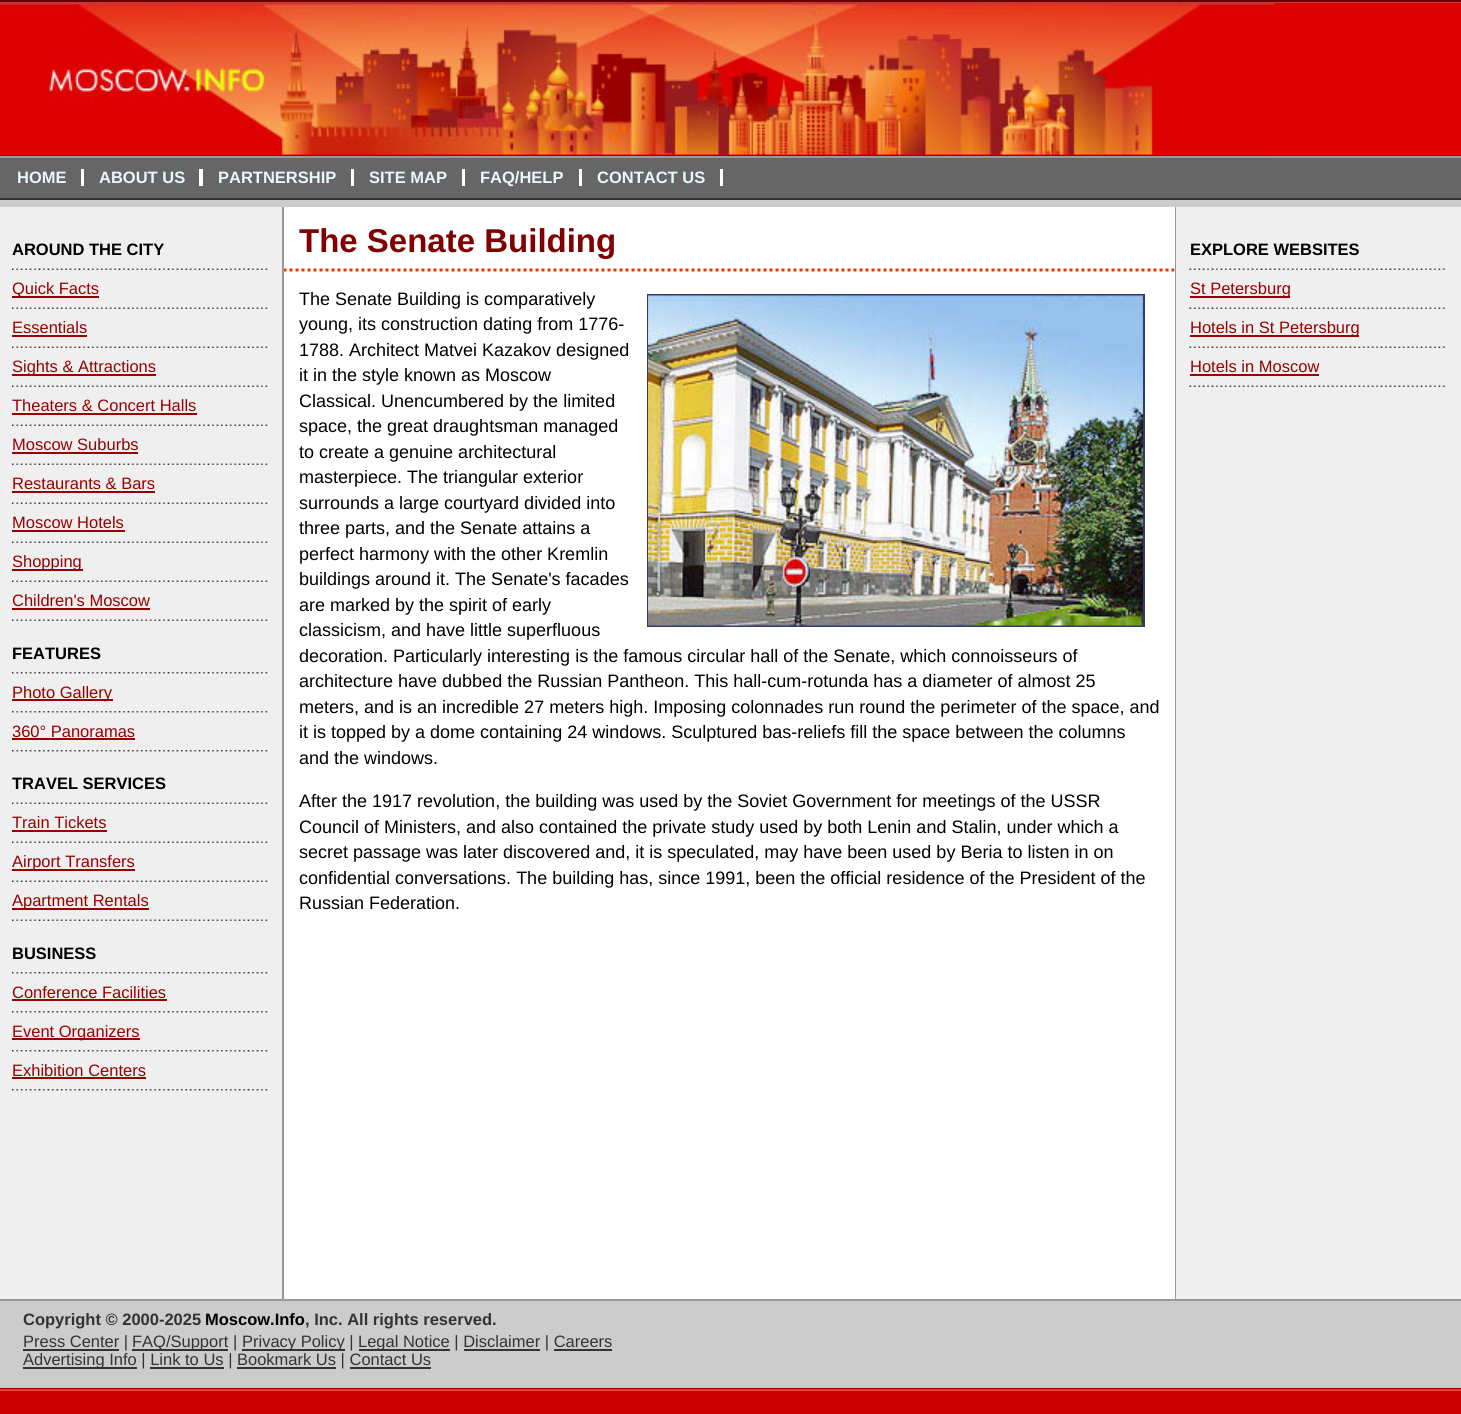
#include <cairo.h>
#include <math.h>
#include <stddef.h>


static void rgb(cairo_t *cr, int r, int g, int b)
{
	cairo_set_source_rgb(cr, r / 255.0, g / 255.0, b / 255.0);
}

static void face(cairo_t *cr, const char *family, double size, int italic, int bold)
{
	cairo_select_font_face(cr, family, italic ? CAIRO_FONT_SLANT_ITALIC : CAIRO_FONT_SLANT_NORMAL,
		bold ? CAIRO_FONT_WEIGHT_BOLD : CAIRO_FONT_WEIGHT_NORMAL);
	cairo_set_font_size(cr, size);
}

static void label(cairo_t *cr, double x, double y, const char *s)
{
	cairo_move_to(cr, x, y);
	cairo_show_text(cr, s);
}

static void rect(cairo_t *cr, double x, double y, double w, double h)
{
	cairo_rectangle(cr, x, y, w, h);
	cairo_fill(cr);
}

static void image(cairo_t *cr, const char *path, double x, double y, double w, double h)
{
	cairo_surface_t *image = cairo_image_surface_create_from_png(path);
	cairo_save(cr);
	cairo_set_source_surface(cr, image, x, y);
	cairo_rectangle(cr, x, y, w, h);
	cairo_fill(cr);
	cairo_restore(cr);
	cairo_surface_destroy(image);
}

static void draw(cairo_t *cr) {
	rgb(cr, 255, 255, 255);
	cairo_paint(cr);
	rgb(cr, 102, 0, 0);
	rect(cr, 0, 0, 1461, 2);
	rgb(cr, 204, 51, 51);
	rect(cr, 0, 2, 1461, 1);
	rgb(cr, 222, 1, 1);
	rect(cr, 0, 3, 1461, 152);
	image(cr, "image0.png", 0, 3, 1275, 152);
	rgb(cr, 51, 51, 51);
	rect(cr, 0, 155, 1461, 1);
	rgb(cr, 153, 153, 153);
	rect(cr, 0, 156, 1461, 2);
	rgb(cr, 102, 102, 102);
	rect(cr, 0, 158, 1461, 40);
	face(cr, "Liberation Sans", 16.5, 0, 1);
	rgb(cr, 234, 247, 251);
	label(cr, 17, 183, "HOME");
	rgb(cr, 255, 255, 255);
	rect(cr, 81, 169, 3, 17);
	rgb(cr, 234, 247, 251);
	label(cr, 99, 183, "ABOUT US");
	rgb(cr, 255, 255, 255);
	rect(cr, 199, 169, 4, 17);
	rgb(cr, 234, 247, 251);
	label(cr, 218, 183, "PARTNERSHIP");
	rgb(cr, 255, 255, 255);
	rect(cr, 351, 169, 3, 17);
	rgb(cr, 234, 247, 251);
	label(cr, 369, 183, "SITE MAP");
	rgb(cr, 255, 255, 255);
	rect(cr, 462, 169, 3, 17);
	rgb(cr, 234, 247, 251);
	label(cr, 480, 183, "FAQ/HELP");
	rgb(cr, 255, 255, 255);
	rect(cr, 579, 169, 3, 17);
	rgb(cr, 234, 247, 251);
	label(cr, 597, 183, "CONTACT US");
	rgb(cr, 255, 255, 255);
	rect(cr, 720, 169, 3, 17);
	rgb(cr, 51, 51, 51);
	rect(cr, 0, 198, 1461, 2);
	rgb(cr, 204, 204, 204);
	rect(cr, 0, 200, 1461, 7);
	rgb(cr, 239, 239, 239);
	rect(cr, 0, 207, 282, 1092);
	rgb(cr, 0, 0, 0);
	label(cr, 12, 255, "AROUND THE CITY");
	image(cr, "image1.png", 12, 268, 256, 2);
	rgb(cr, 153, 0, 0);
	rect(cr, 12, 296, 87, 2);
	face(cr, "Liberation Sans", 16.5, 0, 0);
	label(cr, 12, 294, "Quick Facts");
	image(cr, "image1.png", 12, 307, 256, 2);
	label(cr, 12, 333, "Essentials");
	rect(cr, 12, 335, 75, 2);
	image(cr, "image1.png", 12, 346, 256, 2);
	rect(cr, 12, 374, 144, 2);
	label(cr, 12, 372, "Sights & Attractions");
	image(cr, "image1.png", 12, 385, 256, 2);
	label(cr, 12, 411, "Theaters & Concert Halls");
	rect(cr, 12, 413, 185, 2);
	image(cr, "image1.png", 12, 424, 256, 2);
	label(cr, 12, 450, "Moscow Suburbs");
	rect(cr, 12, 452, 126, 2);
	image(cr, "image1.png", 12, 463, 256, 2);
	label(cr, 12, 489, "Restaurants & Bars");
	rect(cr, 12, 491, 143, 2);
	image(cr, "image1.png", 12, 502, 256, 2);
	label(cr, 12, 528, "Moscow Hotels");
	rect(cr, 12, 530, 113, 2);
	image(cr, "image1.png", 12, 541, 256, 2);
	rect(cr, 12, 569, 71, 2);
	label(cr, 12, 567, "Shopping");
	image(cr, "image1.png", 12, 580, 256, 2);
	label(cr, 12, 606, "Children's Moscow");
	rect(cr, 12, 608, 138, 2);
	image(cr, "image1.png", 12, 619, 256, 2);
	face(cr, "Liberation Sans", 16.5, 0, 1);
	rgb(cr, 0, 0, 0);
	label(cr, 12, 659, "FEATURES");
	image(cr, "image2.png", 12, 672, 256, 2);
	rgb(cr, 153, 0, 0);
	rect(cr, 12, 699, 101, 2);
	face(cr, "Liberation Sans", 16.5, 0, 0);
	label(cr, 12, 698, "Photo Gallery");
	image(cr, "image2.png", 12, 711, 256, 2);
	label(cr, 12, 737, "360° Panoramas");
	rect(cr, 12, 738, 123, 2);
	image(cr, "image2.png", 12, 750, 256, 2);
	face(cr, "Liberation Sans", 16.5, 0, 1);
	rgb(cr, 0, 0, 0);
	label(cr, 12, 789, "TRAVEL SERVICES");
	image(cr, "image1.png", 12, 802, 256, 2);
	face(cr, "Liberation Sans", 16.5, 0, 0);
	rgb(cr, 153, 0, 0);
	label(cr, 12, 828, "Train Tickets");
	rect(cr, 12, 830, 95, 2);
	image(cr, "image1.png", 12, 841, 256, 2);
	rect(cr, 12, 869, 123, 2);
	label(cr, 12, 867, "Airport Transfers");
	image(cr, "image1.png", 12, 880, 256, 2);
	rect(cr, 12, 908, 137, 2);
	label(cr, 12, 906, "Apartment Rentals");
	image(cr, "image1.png", 12, 919, 256, 2);
	face(cr, "Liberation Sans", 16.5, 0, 1);
	rgb(cr, 0, 0, 0);
	label(cr, 12, 959, "BUSINESS");
	image(cr, "image2.png", 12, 972, 256, 2);
	face(cr, "Liberation Sans", 16.5, 0, 0);
	rgb(cr, 153, 0, 0);
	label(cr, 12, 998, "Conference Facilities");
	rect(cr, 12, 999, 155, 2);
	image(cr, "image2.png", 12, 1011, 256, 2);
	rect(cr, 12, 1038, 128, 2);
	label(cr, 12, 1037, "Event Organizers");
	image(cr, "image2.png", 12, 1050, 256, 2);
	label(cr, 12, 1076, "Exhibition Centers");
	rect(cr, 12, 1077, 134, 2);
	image(cr, "image2.png", 12, 1089, 256, 2);
	rgb(cr, 153, 153, 153);
	rect(cr, 282, 207, 2, 1092);
	face(cr, "Liberation Sans", 33, 0, 1);
	rgb(cr, 128, 0, 0);
	label(cr, 299, 252, "The Senate Building");
	image(cr, "image3.png", 283, 268, 892, 4);
	face(cr, "Liberation Sans", 18, 0, 0);
	rgb(cr, 0, 0, 0);
	label(cr, 299, 305, "The Senate Building is comparatively");
	cairo_rectangle(cr, 648, 295, 496, 331);
	rgb(cr, 52, 58, 110);
	cairo_stroke(cr);
	image(cr, "image4.png", 648, 295, 495, 331);
	rgb(cr, 0, 0, 0);
	label(cr, 299, 330, "young, its construction dating from 1776-");
	label(cr, 299, 356, "1788. Architect Matvei Kazakov designed");
	label(cr, 299, 381, "it in the style known as Moscow");
	label(cr, 299, 407, "Classical. Unencumbered by the limited");
	label(cr, 299, 432, "space, the great draughtsman managed");
	label(cr, 299, 458, "to create a genuine architectural");
	label(cr, 299, 483, "masterpiece. The triangular exterior");
	label(cr, 299, 509, "surrounds a large courtyard divided into");
	label(cr, 299, 534, "three parts, and the Senate attains a");
	label(cr, 299, 560, "perfect harmony with the other Kremlin");
	label(cr, 299, 585, "buildings around it. The Senate's facades");
	label(cr, 299, 611, "are marked by the spirit of early");
	label(cr, 299, 636, "classicism, and have little superfluous");
	label(cr, 299, 662, "decoration. Particularly interesting is the famous circular hall of the Senate, which connoisseurs of");
	label(cr, 299, 687, "architecture have dubbed the Russian Pantheon. This hall-cum-rotunda has a diameter of almost 25");
	label(cr, 299, 713, "meters, and is an incredible 27 meters high. Imposing colonnades run round the perimeter of the space, and");
	label(cr, 299, 738, "it is topped by a dome containing 24 windows. Sculptured bas-reliefs fill the space between the columns");
	label(cr, 299, 764, "and the windows.");
	label(cr, 299, 807, "After the 1917 revolution, the building was used by the Soviet Government for meetings of the USSR");
	label(cr, 299, 833, "Council of Ministers, and also contained the private study used by both Lenin and Stalin, under which a");
	label(cr, 299, 858, "secret passage was later discovered and, it is speculated, may have been used by Beria to listen in on");
	label(cr, 299, 884, "confidential conversations. The building has, since 1991, been the official residence of the President of the");
	label(cr, 299, 909, "Russian Federation.");
	rgb(cr, 153, 153, 153);
	rect(cr, 1175, 207, 1, 1092);
	rgb(cr, 239, 239, 239);
	rect(cr, 1176, 207, 285, 1092);
	face(cr, "Liberation Sans", 16.5, 0, 1);
	rgb(cr, 0, 0, 0);
	label(cr, 1190, 255, "EXPLORE WEBSITES");
	image(cr, "image5.png", 1189, 268, 256, 2);
	rgb(cr, 153, 0, 0);
	rect(cr, 1190, 296, 100, 2);
	face(cr, "Liberation Sans", 16.5, 0, 0);
	label(cr, 1190, 294, "St Petersburg");
	image(cr, "image5.png", 1189, 307, 256, 2);
	rect(cr, 1190, 335, 169, 2);
	label(cr, 1190, 333, "Hotels in St Petersburg");
	image(cr, "image5.png", 1189, 346, 256, 2);
	label(cr, 1190, 372, "Hotels in Moscow");
	rect(cr, 1190, 374, 129, 2);
	image(cr, "image5.png", 1189, 385, 256, 2);
	rgb(cr, 153, 153, 153);
	rect(cr, 0, 1299, 1461, 2);
	rgb(cr, 204, 204, 204);
	rect(cr, 0, 1301, 1461, 87);
	face(cr, "Liberation Sans", 16.5, 0, 1);
	rgb(cr, 51, 51, 51);
	label(cr, 23, 1325, "Copyright © 2000-2025");
	rgb(cr, 0, 0, 0);
	label(cr, 205, 1325, "Moscow.Info");
	rgb(cr, 51, 51, 51);
	label(cr, 305, 1325, ", Inc. All rights reserved.");
	rect(cr, 23, 1349, 96, 2);
	face(cr, "Liberation Sans", 16.5, 0, 0);
	label(cr, 23, 1347, "Press Center |");
	rect(cr, 132, 1349, 96, 2);
	label(cr, 132, 1347, "FAQ/Support |");
	rect(cr, 242, 1349, 103, 2);
	label(cr, 242, 1347, "Privacy Policy |");
	rect(cr, 359, 1349, 91, 2);
	label(cr, 358, 1347, "Legal Notice | Disclaimer | Careers");
	rect(cr, 464, 1349, 76, 2);
	rect(cr, 554, 1349, 58, 2);
	rect(cr, 23, 1367, 114, 2);
	label(cr, 23, 1365, "Advertising Info | Link to Us | Bookmark Us | Contact Us");
	rect(cr, 150, 1367, 74, 2);
	rect(cr, 237, 1367, 99, 2);
	rect(cr, 350, 1367, 81, 2);
	rgb(cr, 153, 0, 0);
	rect(cr, 0, 1388, 1461, 1);
	rgb(cr, 255, 51, 51);
	rect(cr, 0, 1389, 1461, 2);
	rgb(cr, 204, 0, 0);
	rect(cr, 0, 1391, 1461, 23);
}

int main(void) {
	cairo_surface_t *surface = cairo_image_surface_create(CAIRO_FORMAT_RGB24, 1461, 1414);
	cairo_t *cr = cairo_create(surface);
	cairo_font_options_t *options = cairo_font_options_create();
	cairo_font_options_set_hint_metrics(options, CAIRO_HINT_METRICS_OFF);
	cairo_font_options_set_hint_style(options, CAIRO_HINT_STYLE_NONE);
	cairo_set_font_options(cr, options);
	cairo_set_miter_limit(cr, 4);
	draw(cr);
	cairo_surface_write_to_png(surface, "render.png");
	cairo_font_options_destroy(options);
	cairo_destroy(cr);
	cairo_surface_destroy(surface);
	return 0;
}
